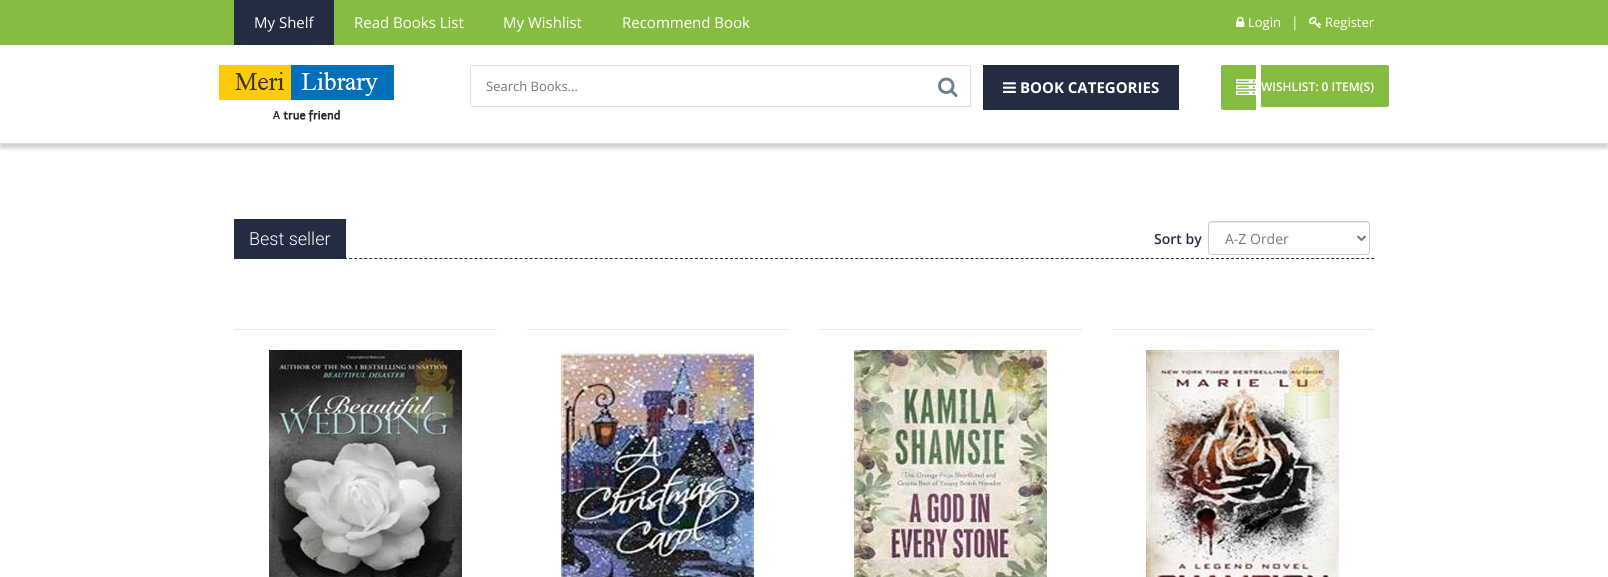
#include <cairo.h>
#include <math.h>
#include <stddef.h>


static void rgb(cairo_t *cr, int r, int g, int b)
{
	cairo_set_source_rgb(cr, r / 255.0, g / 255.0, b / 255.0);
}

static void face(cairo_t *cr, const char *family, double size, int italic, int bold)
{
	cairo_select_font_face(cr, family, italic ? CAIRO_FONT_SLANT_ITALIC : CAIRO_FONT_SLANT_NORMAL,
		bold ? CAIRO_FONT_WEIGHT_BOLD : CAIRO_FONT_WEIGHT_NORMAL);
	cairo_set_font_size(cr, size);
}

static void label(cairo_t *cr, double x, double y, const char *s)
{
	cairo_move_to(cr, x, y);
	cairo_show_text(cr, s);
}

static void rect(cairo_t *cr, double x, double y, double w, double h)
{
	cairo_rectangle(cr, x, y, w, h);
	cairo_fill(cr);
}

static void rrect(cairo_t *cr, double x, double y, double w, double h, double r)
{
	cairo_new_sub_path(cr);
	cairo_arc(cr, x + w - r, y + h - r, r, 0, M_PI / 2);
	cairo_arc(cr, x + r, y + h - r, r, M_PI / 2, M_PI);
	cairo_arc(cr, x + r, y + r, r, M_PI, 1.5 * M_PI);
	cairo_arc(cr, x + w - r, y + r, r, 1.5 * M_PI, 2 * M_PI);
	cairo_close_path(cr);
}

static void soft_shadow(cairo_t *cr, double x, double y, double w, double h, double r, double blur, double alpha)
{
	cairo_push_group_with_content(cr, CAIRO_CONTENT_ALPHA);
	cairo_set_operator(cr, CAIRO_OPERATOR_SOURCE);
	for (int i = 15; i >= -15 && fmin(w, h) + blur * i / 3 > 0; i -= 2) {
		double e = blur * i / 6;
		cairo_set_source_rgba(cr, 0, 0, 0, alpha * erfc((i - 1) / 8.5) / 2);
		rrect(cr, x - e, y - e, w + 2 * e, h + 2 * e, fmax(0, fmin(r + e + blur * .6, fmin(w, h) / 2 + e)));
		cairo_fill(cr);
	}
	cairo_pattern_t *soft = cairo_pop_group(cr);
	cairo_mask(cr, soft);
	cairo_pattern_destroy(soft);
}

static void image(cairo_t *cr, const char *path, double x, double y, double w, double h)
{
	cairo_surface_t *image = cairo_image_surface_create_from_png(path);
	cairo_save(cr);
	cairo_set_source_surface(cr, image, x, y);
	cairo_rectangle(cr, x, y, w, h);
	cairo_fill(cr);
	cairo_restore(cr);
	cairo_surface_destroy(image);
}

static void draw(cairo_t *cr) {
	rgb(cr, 255, 255, 255);
	cairo_paint(cr);
	cairo_save(cr);
	cairo_rectangle(cr, 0, 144, 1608, 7);
	cairo_clip(cr);
	rgb(cr, 0, 0, 0);
	soft_shadow(cr, 0, 4, 1608, 144, 0, 2.5, 0.2);
	cairo_restore(cr);
	rgb(cr, 134, 188, 66);
	rect(cr, 0, 0, 1608, 45);
	rgb(cr, 36, 44, 66);
	rect(cr, 234, 0, 100, 45);
	face(cr, "Open Sans", 15, 0, 0);
	rgb(cr, 255, 255, 255);
	label(cr, 254, 28, "My Shelf");
	label(cr, 354, 28, "Read Books List");
	label(cr, 503, 28, "My Wishlist");
	label(cr, 622, 28, "Recommend Book");
	image(cr, "image0.png", 1236, 16, 9, 11);
	face(cr, "Open Sans", 13, 0, 0);
	label(cr, 1248, 27, "Login");
	face(cr, "Open Sans", 14, 0, 0);
	label(cr, 1291, 27, "|");
	image(cr, "image1.png", 1309, 16, 13, 13);
	face(cr, "Open Sans", 13, 0, 0);
	label(cr, 1325, 27, "Register");
	rgb(cr, 221, 221, 221);
	rect(cr, 0, 143, 1608, 1);
	image(cr, "image2.png", 219, 65, 175, 57);
	rrect(cr, 470.5, 65.5, 500, 41, 1.5);
	cairo_set_line_width(cr, 1);
	cairo_stroke(cr);
	rgb(cr, 255, 255, 255);
	rect(cr, 471, 66, 1, 40);
	rgb(cr, 119, 119, 119);
	label(cr, 486, 91, "Search Books...");
	image(cr, "image3.png", 938, 77, 20, 20);
	rgb(cr, 36, 44, 66);
	rect(cr, 983, 65, 196, 45);
	image(cr, "image4.png", 1003, 82, 13, 11);
	face(cr, "Open Sans", 15, 0, 1);
	rgb(cr, 255, 255, 255);
	label(cr, 1020, 93, "BOOK CATEGORIES");
	rgb(cr, 134, 188, 66);
	cairo_new_path(cr);
	cairo_move_to(cr, 1223, 65);
	cairo_line_to(cr, 1256, 65);
	cairo_line_to(cr, 1256, 110);
	cairo_line_to(cr, 1223, 110);
	cairo_curve_to(cr, 1222, 110, 1221, 109, 1221, 108);
	cairo_line_to(cr, 1221, 67);
	cairo_curve_to(cr, 1221, 66, 1222, 65, 1223, 65);
	cairo_close_path(cr);
	cairo_fill(cr);
	rect(cr, 1261, 65, 67, 42);
	cairo_new_path(cr);
	cairo_move_to(cr, 1328, 65);
	cairo_line_to(cr, 1387, 65);
	cairo_curve_to(cr, 1388, 65, 1389, 66, 1389, 67);
	cairo_line_to(cr, 1389, 105);
	cairo_curve_to(cr, 1389, 106, 1388, 107, 1387, 107);
	cairo_line_to(cr, 1328, 107);
	cairo_close_path(cr);
	cairo_fill(cr);
	image(cr, "image5.png", 1236, 79, 20, 16);
	face(cr, "Open Sans SemiBold", 12, 0, 0);
	rgb(cr, 255, 255, 255);
	label(cr, 1261, 91, "WISHLIST: 0 ITEM(S)");
	cairo_new_path(cr);
	cairo_move_to(cr, 234, 258.5);
	cairo_line_to(cr, 1374, 258.5);
	rgb(cr, 36, 44, 66);
	cairo_set_dash(cr, (double[]){3, 2.01}, 2, 0);
	cairo_stroke(cr);
	rect(cr, 234, 219, 112, 40);
	face(cr, "Roboto Light", 18, 0, 0);
	rgb(cr, 255, 255, 255);
	label(cr, 249, 245, "Best seller");
	face(cr, "Open Sans SemiBold", 14, 0, 0);
	rgb(cr, 36, 44, 66);
	label(cr, 1154, 244, "Sort by");
	rgb(cr, 236, 236, 236);
	cairo_new_path(cr);
	cairo_move_to(cr, 1212, 223);
	cairo_line_to(cr, 1366, 223);
	cairo_curve_to(cr, 1368, 223, 1369, 224, 1369, 226);
	cairo_curve_to(cr, 1369, 224, 1368, 222, 1366, 222);
	cairo_line_to(cr, 1211, 222);
	cairo_curve_to(cr, 1209, 222, 1209, 224, 1209, 226);
	cairo_curve_to(cr, 1209, 224, 1210, 223, 1212, 223);
	cairo_close_path(cr);
	cairo_fill(cr);
	rrect(cr, 1208.5, 221.5, 161, 33, 3.5);
	rgb(cr, 204, 204, 204);
	cairo_set_dash(cr, NULL, 0, 0);
	cairo_stroke(cr);
	cairo_new_path(cr);
	cairo_move_to(cr, 1357.5, 236);
	cairo_line_to(cr, 1361.5, 240);
	cairo_line_to(cr, 1365.5, 236);
	rgb(cr, 119, 119, 119);
	cairo_set_line_width(cr, 2);
	cairo_stroke(cr);
	face(cr, "Open Sans", 14, 0, 0);
	label(cr, 1225, 244, "A-Z Order");
	rgb(cr, 232, 232, 232);
	rect(cr, 234, 329, 263, 1);
	image(cr, "image6.png", 269, 350, 193, 227);
	rect(cr, 527, 329, 262, 1);
	image(cr, "image7.png", 561, 350, 193, 227);
	rect(cr, 819, 329, 263, 1);
	image(cr, "image8.png", 854, 350, 193, 227);
	rect(cr, 1112, 329, 262, 1);
	image(cr, "image9.png", 1146, 350, 193, 227);
}

int main(void) {
	cairo_surface_t *surface = cairo_image_surface_create(CAIRO_FORMAT_RGB24, 1608, 577);
	cairo_t *cr = cairo_create(surface);
	cairo_font_options_t *options = cairo_font_options_create();
	cairo_font_options_set_hint_metrics(options, CAIRO_HINT_METRICS_OFF);
	cairo_font_options_set_hint_style(options, CAIRO_HINT_STYLE_NONE);
	cairo_set_font_options(cr, options);
	cairo_set_miter_limit(cr, 4);
	draw(cr);
	cairo_surface_write_to_png(surface, "render.png");
	cairo_font_options_destroy(options);
	cairo_destroy(cr);
	cairo_surface_destroy(surface);
	return 0;
}
